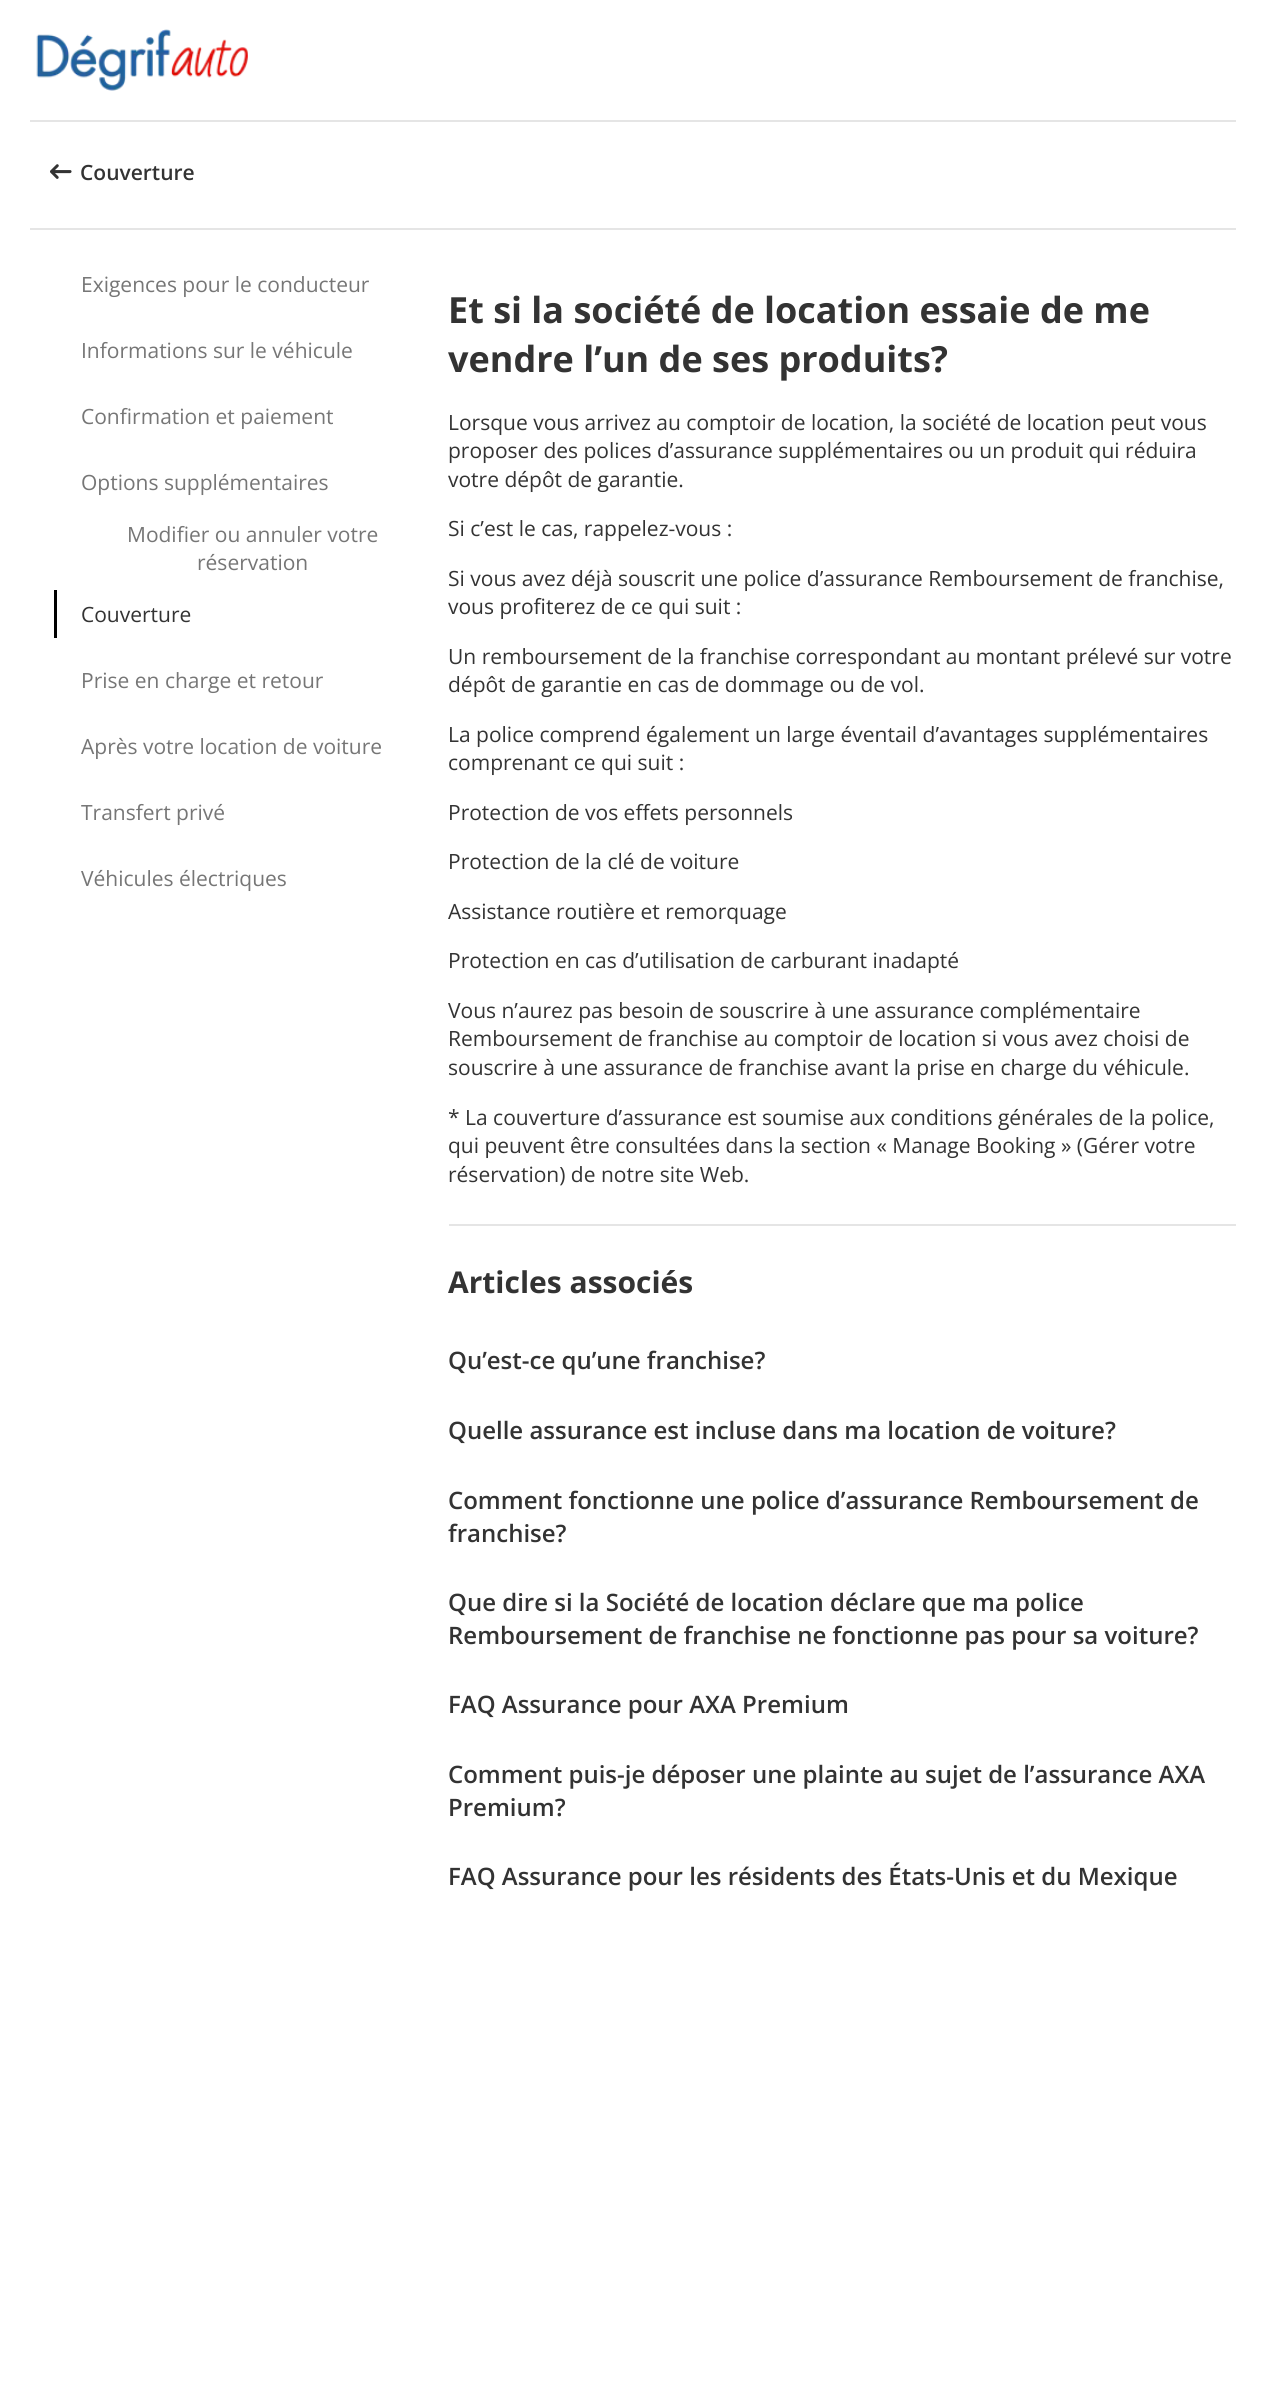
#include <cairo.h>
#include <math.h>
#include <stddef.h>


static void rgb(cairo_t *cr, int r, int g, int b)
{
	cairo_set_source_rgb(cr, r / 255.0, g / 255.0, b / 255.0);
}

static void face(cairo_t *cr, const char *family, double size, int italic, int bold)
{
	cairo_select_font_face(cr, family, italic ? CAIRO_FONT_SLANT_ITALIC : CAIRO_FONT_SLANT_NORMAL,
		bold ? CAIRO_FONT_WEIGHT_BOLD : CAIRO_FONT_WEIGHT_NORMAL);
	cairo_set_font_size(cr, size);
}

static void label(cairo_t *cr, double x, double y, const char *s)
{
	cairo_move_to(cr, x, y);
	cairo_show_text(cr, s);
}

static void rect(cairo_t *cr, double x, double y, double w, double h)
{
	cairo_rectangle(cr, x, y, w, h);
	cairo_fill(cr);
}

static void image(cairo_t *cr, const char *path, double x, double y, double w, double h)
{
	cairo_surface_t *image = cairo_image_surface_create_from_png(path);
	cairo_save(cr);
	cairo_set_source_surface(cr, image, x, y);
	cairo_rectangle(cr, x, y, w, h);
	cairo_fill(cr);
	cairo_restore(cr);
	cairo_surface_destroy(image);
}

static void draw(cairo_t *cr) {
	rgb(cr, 255, 255, 255);
	cairo_paint(cr);
	image(cr, "image0.png", 36, 29, 212, 62);
	rgb(cr, 229, 229, 229);
	rect(cr, 30, 120, 1206, 2);
	image(cr, "image1.png", 50, 164, 22, 15);
	face(cr, "Open Sans SemiBold", 21, 0, 0);
	rgb(cr, 51, 51, 51);
	label(cr, 80, 180, "Couverture");
	rgb(cr, 229, 229, 229);
	rect(cr, 30, 228, 1206, 2);
	face(cr, "Open Sans", 21, 0, 0);
	rgb(cr, 118, 118, 118);
	label(cr, 81, 292, "Exigences pour le conducteur");
	label(cr, 81, 358, "Informations sur le véhicule");
	label(cr, 81, 424, "Confirmation et paiement");
	label(cr, 81, 490, "Options supplémentaires");
	label(cr, 127, 542, "Modifier ou annuler votre");
	label(cr, 197, 570, "réservation");
	rgb(cr, 0, 0, 0);
	rect(cr, 54, 590, 3, 48);
	rgb(cr, 51, 51, 51);
	label(cr, 81, 622, "Couverture");
	rgb(cr, 118, 118, 118);
	label(cr, 81, 688, "Prise en charge et retour");
	label(cr, 81, 754, "Après votre location de voiture");
	label(cr, 81, 820, "Transfert privé");
	label(cr, 81, 886, "Véhicules électriques");
	face(cr, "Open Sans", 36, 0, 1);
	rgb(cr, 51, 51, 51);
	label(cr, 448, 323, "Et si la société de location essaie de me");
	label(cr, 448, 372, "vendre l’un de ses produits?");
	face(cr, "Open Sans", 21, 0, 0);
	label(cr, 448, 430, "Lorsque vous arrivez au comptoir de location, la société de location peut vous");
	label(cr, 448, 458, "proposer des polices d’assurance supplémentaires ou un produit qui réduira");
	label(cr, 448, 487, "votre dépôt de garantie.");
	label(cr, 448, 536, "Si c’est le cas, rappelez-vous :");
	label(cr, 448, 586, "Si vous avez déjà souscrit une police d’assurance Remboursement de franchise,");
	label(cr, 448, 614, "vous profiterez de ce qui suit :");
	label(cr, 448, 664, "Un remboursement de la franchise correspondant au montant prélevé sur votre");
	label(cr, 448, 692, "dépôt de garantie en cas de dommage ou de vol.");
	label(cr, 448, 742, "La police comprend également un large éventail d’avantages supplémentaires");
	label(cr, 448, 770, "comprenant ce qui suit :");
	label(cr, 448, 820, "Protection de vos effets personnels");
	label(cr, 448, 869, "Protection de la clé de voiture");
	label(cr, 448, 919, "Assistance routière et remorquage");
	label(cr, 448, 968, "Protection en cas d’utilisation de carburant inadapté");
	label(cr, 448, 1018, "Vous n’aurez pas besoin de souscrire à une assurance complémentaire");
	label(cr, 448, 1046, "Remboursement de franchise au comptoir de location si vous avez choisi de");
	label(cr, 448, 1075, "souscrire à une assurance de franchise avant la prise en charge du véhicule.");
	label(cr, 448, 1125, "* La couverture d’assurance est soumise aux conditions générales de la police,");
	label(cr, 448, 1153, "qui peuvent être consultées dans la section « Manage Booking » (Gérer votre");
	label(cr, 448, 1182, "réservation) de notre site Web.");
	rgb(cr, 229, 229, 229);
	rect(cr, 449, 1224, 787, 2);
	face(cr, "Open Sans", 30, 0, 1);
	rgb(cr, 51, 51, 51);
	label(cr, 448, 1293, "Articles associés");
	face(cr, "Open Sans SemiBold", 24, 0, 0);
	label(cr, 448, 1369, "Qu’est-ce qu’une franchise?");
	label(cr, 448, 1439, "Quelle assurance est incluse dans ma location de voiture?");
	label(cr, 448, 1509, "Comment fonctionne une police d’assurance Remboursement de");
	label(cr, 448, 1542, "franchise?");
	label(cr, 448, 1611, "Que dire si la Société de location déclare que ma police");
	label(cr, 448, 1644, "Remboursement de franchise ne fonctionne pas pour sa voiture?");
	label(cr, 448, 1713, "FAQ Assurance pour AXA Premium");
	label(cr, 448, 1783, "Comment puis-je déposer une plainte au sujet de l’assurance AXA");
	label(cr, 448, 1816, "Premium?");
	label(cr, 448, 1885, "FAQ Assurance pour les résidents des États-Unis et du Mexique");
}

int main(void) {
	cairo_surface_t *surface = cairo_image_surface_create(CAIRO_FORMAT_RGB24, 1265, 2405);
	cairo_t *cr = cairo_create(surface);
	cairo_font_options_t *options = cairo_font_options_create();
	cairo_font_options_set_hint_metrics(options, CAIRO_HINT_METRICS_OFF);
	cairo_font_options_set_hint_style(options, CAIRO_HINT_STYLE_NONE);
	cairo_set_font_options(cr, options);
	cairo_set_miter_limit(cr, 4);
	draw(cr);
	cairo_surface_write_to_png(surface, "render.png");
	cairo_font_options_destroy(options);
	cairo_destroy(cr);
	cairo_surface_destroy(surface);
	return 0;
}
